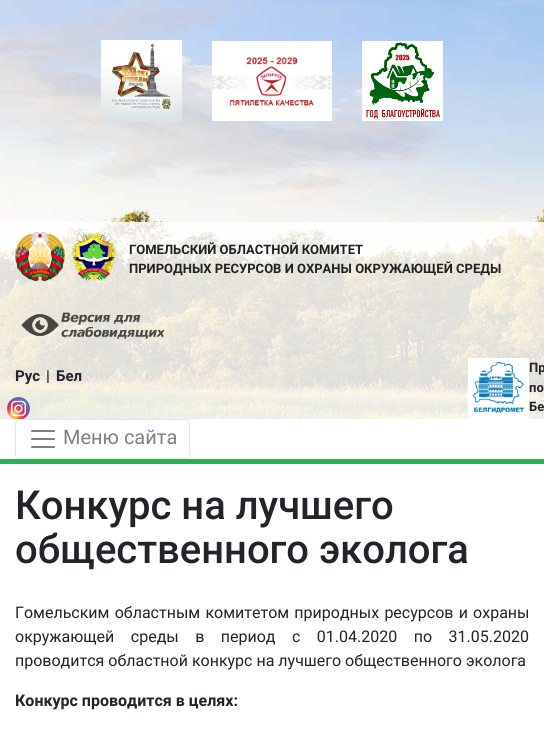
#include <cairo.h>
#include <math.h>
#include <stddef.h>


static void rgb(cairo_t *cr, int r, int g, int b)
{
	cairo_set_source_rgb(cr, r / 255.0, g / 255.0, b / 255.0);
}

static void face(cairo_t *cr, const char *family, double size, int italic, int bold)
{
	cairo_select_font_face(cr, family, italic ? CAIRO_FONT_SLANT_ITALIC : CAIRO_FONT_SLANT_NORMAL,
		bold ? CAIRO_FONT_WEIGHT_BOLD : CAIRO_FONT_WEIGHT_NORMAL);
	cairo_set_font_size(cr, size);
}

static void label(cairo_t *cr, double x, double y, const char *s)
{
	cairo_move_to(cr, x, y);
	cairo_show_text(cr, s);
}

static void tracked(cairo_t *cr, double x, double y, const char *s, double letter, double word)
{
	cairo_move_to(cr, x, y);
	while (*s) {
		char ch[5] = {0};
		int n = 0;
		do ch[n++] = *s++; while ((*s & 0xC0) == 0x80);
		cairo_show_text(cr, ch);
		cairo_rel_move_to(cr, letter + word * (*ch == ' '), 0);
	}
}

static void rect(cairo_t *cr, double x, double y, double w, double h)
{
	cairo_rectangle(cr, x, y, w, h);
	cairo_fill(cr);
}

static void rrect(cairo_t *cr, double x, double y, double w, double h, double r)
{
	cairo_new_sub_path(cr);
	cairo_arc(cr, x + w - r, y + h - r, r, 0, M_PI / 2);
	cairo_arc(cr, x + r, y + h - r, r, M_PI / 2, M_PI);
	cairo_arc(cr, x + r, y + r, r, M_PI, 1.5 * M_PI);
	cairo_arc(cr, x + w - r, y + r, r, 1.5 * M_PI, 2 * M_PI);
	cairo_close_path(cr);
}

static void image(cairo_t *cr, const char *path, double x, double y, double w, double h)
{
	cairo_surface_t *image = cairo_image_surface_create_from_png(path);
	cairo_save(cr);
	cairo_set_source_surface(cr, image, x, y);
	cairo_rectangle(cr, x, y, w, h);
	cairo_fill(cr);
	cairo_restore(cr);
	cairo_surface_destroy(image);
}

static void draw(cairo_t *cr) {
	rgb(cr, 255, 255, 255);
	cairo_paint(cr);
	image(cr, "image0.png", 0, 0, 544, 419);
	image(cr, "image1.png", 101, 40, 81, 82);
	image(cr, "image2.png", 212, 41, 120, 80);
	image(cr, "image3.png", 362, 41, 81, 80);
	cairo_set_source_rgba(cr, 1, 1, 1, 0.85);
	rect(cr, 0, 222, 544, 197);
	image(cr, "image4.png", 15, 232, 50, 49);
	image(cr, "image5.png", 71, 232, 45, 49);
	face(cr, "Roboto", 13, 0, 1);
	rgb(cr, 34, 34, 34);
	label(cr, 129, 254, "ГОМЕЛЬСКИЙ ОБЛАСТНОЙ КОМИТЕТ");
	label(cr, 129, 273, "ПРИРОДНЫХ РЕСУРСОВ И ОХРАНЫ ОКРУЖАЮЩЕЙ СРЕДЫ");
	image(cr, "image6.png", 21, 312, 144, 27);
	face(cr, "Roboto", 15, 0, 1);
	rgb(cr, 33, 37, 41);
	label(cr, 15, 381, "Рус");
	label(cr, 46, 381, "|");
	label(cr, 56, 381, "Бел");
	image(cr, "image7.png", 7, 397, 23, 22);
	image(cr, "image8.png", 468, 358, 61, 61);
	face(cr, "Roboto", 13, 0, 1);
	label(cr, 529, 372, "Пр");
	label(cr, 529, 392, "по");
	label(cr, 529, 411, "Бе");
	rgb(cr, 48, 175, 89);
	rect(cr, 0, 459, 544, 5);
	rrect(cr, 15.5, 419.5, 174, 39, 3.5);
	rgb(cr, 230, 230, 230);
	cairo_set_line_width(cr, 1);
	cairo_stroke(cr);
	image(cr, "image9.png", 31, 430, 24, 18);
	face(cr, "Roboto", 20, 0, 0);
	rgb(cr, 128, 128, 128);
	label(cr, 63, 444, "Меню сайта");
	face(cr, "Roboto Medium", 40, 0, 0);
	rgb(cr, 33, 37, 41);
	label(cr, 15, 519, "Конкурс на лучшего");
	label(cr, 15, 563, "общественного эколога");
	face(cr, "Roboto", 16, 0, 0);
	tracked(cr, 15, 618, "Гомельским областным комитетом природных ресурсов и охраны", 0, 1.25);
	tracked(cr, 15, 642, "окружающей среды в период с 01.04.2020 по 31.05.2020", 0, 12.5);
	label(cr, 15, 666, "проводится областной конкурс на лучшего общественного эколога");
	face(cr, "Roboto", 16, 0, 1);
	label(cr, 15, 706, "Конкурс проводится в целях:");
}

int main(void) {
	cairo_surface_t *surface = cairo_image_surface_create(CAIRO_FORMAT_RGB24, 544, 730);
	cairo_t *cr = cairo_create(surface);
	cairo_font_options_t *options = cairo_font_options_create();
	cairo_font_options_set_hint_metrics(options, CAIRO_HINT_METRICS_OFF);
	cairo_font_options_set_hint_style(options, CAIRO_HINT_STYLE_NONE);
	cairo_set_font_options(cr, options);
	cairo_set_miter_limit(cr, 4);
	draw(cr);
	cairo_surface_write_to_png(surface, "render.png");
	cairo_font_options_destroy(options);
	cairo_destroy(cr);
	cairo_surface_destroy(surface);
	return 0;
}
